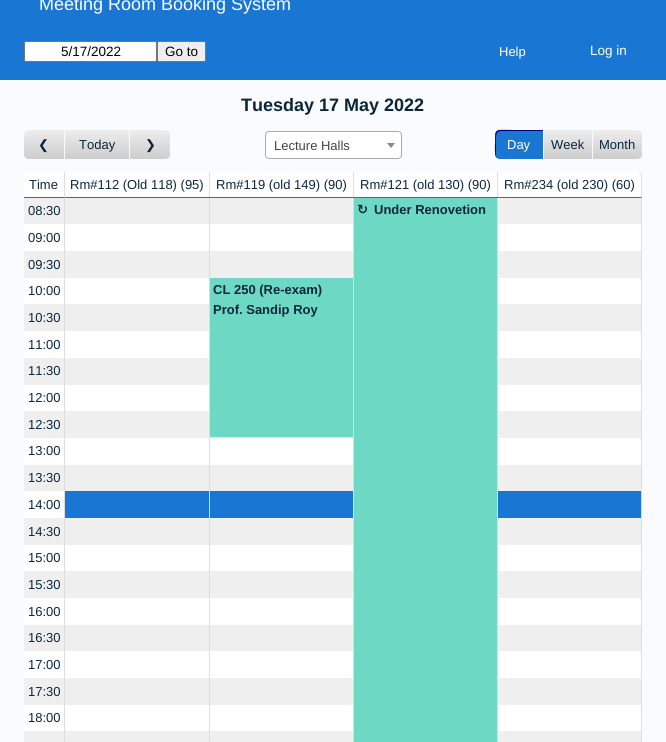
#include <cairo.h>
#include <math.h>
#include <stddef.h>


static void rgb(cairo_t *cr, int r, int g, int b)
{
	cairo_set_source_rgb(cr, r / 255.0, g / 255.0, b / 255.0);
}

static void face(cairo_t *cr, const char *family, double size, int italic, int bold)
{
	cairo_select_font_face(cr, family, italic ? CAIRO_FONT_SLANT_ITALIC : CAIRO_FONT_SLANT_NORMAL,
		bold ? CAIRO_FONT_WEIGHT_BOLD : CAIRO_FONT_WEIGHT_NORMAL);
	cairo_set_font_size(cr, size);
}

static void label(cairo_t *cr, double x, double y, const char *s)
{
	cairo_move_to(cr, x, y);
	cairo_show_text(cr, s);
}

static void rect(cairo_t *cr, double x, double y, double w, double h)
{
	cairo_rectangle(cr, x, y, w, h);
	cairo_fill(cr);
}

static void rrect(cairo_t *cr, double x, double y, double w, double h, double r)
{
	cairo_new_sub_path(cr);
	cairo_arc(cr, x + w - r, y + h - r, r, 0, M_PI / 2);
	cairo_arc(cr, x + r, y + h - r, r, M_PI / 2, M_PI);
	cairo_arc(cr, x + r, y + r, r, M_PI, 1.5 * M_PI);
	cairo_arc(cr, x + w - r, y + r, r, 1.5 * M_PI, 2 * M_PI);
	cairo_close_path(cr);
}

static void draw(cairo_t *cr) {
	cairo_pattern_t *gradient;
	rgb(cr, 249, 251, 252);
	cairo_paint(cr);
	rgb(cr, 25, 118, 210);
	rect(cr, 0, 0, 666, 80);
	face(cr, "Liberation Sans", 18, 0, 0);
	rgb(cr, 255, 255, 255);
	label(cr, 39, 10, "Meeting Room Booking System");
	rrect(cr, 24.5, 41.5, 132, 20, 1.5);
	cairo_fill_preserve(cr);
	rgb(cr, 118, 118, 118);
	cairo_set_line_width(cr, 1);
	cairo_stroke(cr);
	face(cr, "Liberation Sans", 13.5, 0, 0);
	rgb(cr, 0, 0, 0);
	label(cr, 61, 56, "5/17/2022");
	rgb(cr, 239, 239, 239);
	rrect(cr, 157.5, 41.5, 48, 20, 1.5);
	cairo_fill_preserve(cr);
	rgb(cr, 118, 118, 118);
	cairo_stroke(cr);
	rgb(cr, 0, 0, 0);
	label(cr, 165, 56, "Go to");
	face(cr, "Liberation Sans", 13, 0, 0);
	rgb(cr, 255, 255, 255);
	label(cr, 499, 56, "Help");
	face(cr, "Liberation Sans", 13.5, 0, 0);
	label(cr, 590, 55, "Log in");
	face(cr, "Liberation Sans", 18, 0, 1);
	rgb(cr, 11, 38, 59);
	label(cr, 241, 111, "Tuesday 17 May 2022");
	gradient = cairo_pattern_create_linear(44, 130, 44, 159);
	cairo_pattern_add_color_stop_rgba(gradient, 0, 0.933, 0.933, 0.933, 1);
	cairo_pattern_add_color_stop_rgba(gradient, 1, 0.8, 0.8, 0.8, 1);
	cairo_set_source(cr, gradient);
	cairo_pattern_destroy(gradient);
	cairo_new_path(cr);
	cairo_move_to(cr, 29, 130);
	cairo_line_to(cr, 65, 130);
	cairo_line_to(cr, 65, 159);
	cairo_line_to(cr, 29, 159);
	cairo_curve_to(cr, 26, 159, 24, 157, 24, 154);
	cairo_line_to(cr, 24, 135);
	cairo_curve_to(cr, 24, 132, 26, 130, 29, 130);
	cairo_close_path(cr);
	cairo_fill(cr);
	rgb(cr, 249, 251, 252);
	rect(cr, 64, 130, 1, 29);
	face(cr, "DejaVu Sans", 13, 0, 0);
	rgb(cr, 11, 38, 59);
	label(cr, 38, 149, "❮");
	gradient = cairo_pattern_create_linear(97, 130, 97, 159);
	cairo_pattern_add_color_stop_rgba(gradient, 0, 0.933, 0.933, 0.933, 1);
	cairo_pattern_add_color_stop_rgba(gradient, 1, 0.8, 0.8, 0.8, 1);
	cairo_set_source(cr, gradient);
	cairo_pattern_destroy(gradient);
	rect(cr, 65, 130, 64, 29);
	face(cr, "Liberation Sans", 13, 0, 0);
	rgb(cr, 11, 38, 59);
	label(cr, 79, 149, "Today");
	gradient = cairo_pattern_create_linear(150, 130, 150, 159);
	cairo_pattern_add_color_stop_rgba(gradient, 0, 0.933, 0.933, 0.933, 1);
	cairo_pattern_add_color_stop_rgba(gradient, 1, 0.8, 0.8, 0.8, 1);
	cairo_set_source(cr, gradient);
	cairo_pattern_destroy(gradient);
	cairo_new_path(cr);
	cairo_move_to(cr, 130, 130);
	cairo_line_to(cr, 165, 130);
	cairo_curve_to(cr, 168, 130, 170, 132, 170, 135);
	cairo_line_to(cr, 170, 154);
	cairo_curve_to(cr, 170, 157, 168, 159, 165, 159);
	cairo_line_to(cr, 130, 159);
	cairo_close_path(cr);
	cairo_fill(cr);
	face(cr, "DejaVu Sans", 13, 0, 0);
	rgb(cr, 11, 38, 59);
	label(cr, 145, 149, "❯");
	rgb(cr, 255, 255, 255);
	rrect(cr, 265.5, 131.5, 136, 27, 3.5);
	cairo_fill_preserve(cr);
	rgb(cr, 170, 170, 170);
	cairo_stroke(cr);
	face(cr, "Liberation Sans", 13, 0, 0);
	rgb(cr, 68, 68, 68);
	label(cr, 274, 150, "Lecture Halls");
	rgb(cr, 136, 136, 136);
	cairo_new_path(cr);
	cairo_move_to(cr, 387, 143);
	cairo_line_to(cr, 395, 143);
	cairo_line_to(cr, 391, 148);
	cairo_close_path(cr);
	cairo_fill(cr);
	rgb(cr, 25, 118, 210);
	cairo_new_path(cr);
	cairo_move_to(cr, 500, 130);
	cairo_line_to(cr, 544, 130);
	cairo_line_to(cr, 544, 159);
	cairo_line_to(cr, 500, 159);
	cairo_curve_to(cr, 497, 159, 495, 157, 495, 154);
	cairo_line_to(cr, 495, 135);
	cairo_curve_to(cr, 495, 132, 497, 130, 500, 130);
	cairo_close_path(cr);
	cairo_fill(cr);
	rgb(cr, 0, 0, 139);
	cairo_new_path(cr);
	cairo_move_to(cr, 501, 131);
	cairo_line_to(cr, 543, 131);
	cairo_line_to(cr, 543, 130);
	cairo_line_to(cr, 514, 130);
	cairo_curve_to(cr, 495, 130, 495, 127, 495, 144);
	cairo_curve_to(cr, 495, 148, 494, 155, 497, 158);
	cairo_curve_to(cr, 495, 155, 496, 149, 496, 146);
	cairo_curve_to(cr, 496, 141, 494, 131, 501, 131);
	cairo_close_path(cr);
	cairo_fill(cr);
	rgb(cr, 249, 251, 252);
	rect(cr, 543, 130, 1, 29);
	rgb(cr, 255, 255, 255);
	label(cr, 507, 149, "Day");
	gradient = cairo_pattern_create_linear(568, 130, 568, 159);
	cairo_pattern_add_color_stop_rgba(gradient, 0, 0.933, 0.933, 0.933, 1);
	cairo_pattern_add_color_stop_rgba(gradient, 1, 0.8, 0.8, 0.8, 1);
	cairo_set_source(cr, gradient);
	cairo_pattern_destroy(gradient);
	rect(cr, 544, 130, 48, 29);
	rgb(cr, 11, 38, 59);
	label(cr, 551, 149, "Week");
	gradient = cairo_pattern_create_linear(618, 130, 618, 159);
	cairo_pattern_add_color_stop_rgba(gradient, 0, 0.933, 0.933, 0.933, 1);
	cairo_pattern_add_color_stop_rgba(gradient, 1, 0.8, 0.8, 0.8, 1);
	cairo_set_source(cr, gradient);
	cairo_pattern_destroy(gradient);
	cairo_new_path(cr);
	cairo_move_to(cr, 593, 130);
	cairo_line_to(cr, 637, 130);
	cairo_curve_to(cr, 640, 130, 642, 132, 642, 135);
	cairo_line_to(cr, 642, 154);
	cairo_curve_to(cr, 642, 157, 640, 159, 637, 159);
	cairo_line_to(cr, 593, 159);
	cairo_close_path(cr);
	cairo_fill(cr);
	rgb(cr, 11, 38, 59);
	label(cr, 599, 149, "Month");
	rgb(cr, 255, 255, 255);
	cairo_new_path(cr);
	cairo_move_to(cr, 29, 172);
	cairo_line_to(cr, 64, 172);
	cairo_line_to(cr, 64, 197);
	cairo_line_to(cr, 24, 197);
	cairo_line_to(cr, 24, 177);
	cairo_curve_to(cr, 24, 174, 26, 172, 29, 172);
	cairo_close_path(cr);
	cairo_fill(cr);
	rgb(cr, 221, 221, 221);
	cairo_new_path(cr);
	cairo_move_to(cr, 65, 172);
	cairo_line_to(cr, 64, 172);
	cairo_line_to(cr, 64, 197);
	cairo_line_to(cr, 65, 198);
	cairo_close_path(cr);
	cairo_fill(cr);
	rgb(cr, 25, 118, 210);
	cairo_new_path(cr);
	cairo_move_to(cr, 65, 198);
	cairo_line_to(cr, 64, 197);
	cairo_line_to(cr, 24, 197);
	cairo_line_to(cr, 24, 198);
	cairo_close_path(cr);
	cairo_fill(cr);
	rgb(cr, 11, 38, 59);
	label(cr, 29, 189, "Time");
	rgb(cr, 255, 255, 255);
	rect(cr, 65, 172, 144, 25);
	rgb(cr, 221, 221, 221);
	rect(cr, 209, 172, 1, 570);
	rect(cr, 353, 172, 1, 570);
	rect(cr, 497, 172, 1, 570);
	rgb(cr, 25, 118, 210);
	rect(cr, 65, 197, 433, 1);
	rgb(cr, 11, 38, 59);
	label(cr, 70, 189, "Rm#112 (Old 118) (95)");
	rgb(cr, 255, 255, 255);
	rect(cr, 210, 172, 143, 25);
	rgb(cr, 11, 38, 59);
	label(cr, 216, 189, "Rm#119 (old 149) (90)");
	rgb(cr, 255, 255, 255);
	rect(cr, 354, 172, 143, 25);
	rgb(cr, 11, 38, 59);
	label(cr, 360, 189, "Rm#121 (old 130) (90)");
	rgb(cr, 255, 255, 255);
	cairo_new_path(cr);
	cairo_move_to(cr, 498, 172);
	cairo_line_to(cr, 637, 172);
	cairo_curve_to(cr, 639, 172, 641, 174, 641, 177);
	cairo_line_to(cr, 641, 197);
	cairo_line_to(cr, 498, 197);
	cairo_close_path(cr);
	cairo_fill(cr);
	rgb(cr, 221, 221, 221);
	cairo_new_path(cr);
	cairo_move_to(cr, 642, 177);
	cairo_curve_to(cr, 642, 174, 640, 172, 637, 172);
	cairo_curve_to(cr, 639, 172, 641, 174, 641, 177);
	cairo_line_to(cr, 641, 197);
	cairo_line_to(cr, 642, 198);
	cairo_close_path(cr);
	cairo_fill(cr);
	rgb(cr, 25, 118, 210);
	cairo_new_path(cr);
	cairo_move_to(cr, 642, 198);
	cairo_line_to(cr, 641, 197);
	cairo_line_to(cr, 498, 197);
	cairo_line_to(cr, 498, 198);
	cairo_close_path(cr);
	cairo_fill(cr);
	rgb(cr, 11, 38, 59);
	label(cr, 504, 189, "Rm#234 (old 230) (60)");
	rgb(cr, 239, 239, 239);
	rect(cr, 24, 198, 40, 26);
	rgb(cr, 221, 221, 221);
	rect(cr, 64, 198, 1, 544);
	rgb(cr, 11, 38, 59);
	label(cr, 28, 215, "08:30");
	rgb(cr, 239, 239, 239);
	rect(cr, 65, 198, 144, 26);
	rect(cr, 210, 198, 143, 26);
	rgb(cr, 109, 217, 196);
	rect(cr, 354, 198, 143, 544);
	face(cr, "DejaVu Sans", 13, 0, 1);
	rgb(cr, 11, 38, 59);
	label(cr, 357, 214, "↻");
	face(cr, "Liberation Sans", 13, 0, 1);
	label(cr, 374, 214, "Under Renovetion");
	rgb(cr, 239, 239, 239);
	rect(cr, 498, 198, 143, 26);
	rgb(cr, 221, 221, 221);
	rect(cr, 641, 198, 1, 544);
	rgb(cr, 255, 255, 255);
	rect(cr, 24, 224, 40, 27);
	face(cr, "Liberation Sans", 13, 0, 0);
	rgb(cr, 11, 38, 59);
	label(cr, 28, 242, "09:00");
	rgb(cr, 255, 255, 255);
	rect(cr, 65, 224, 144, 27);
	rect(cr, 210, 224, 143, 27);
	rect(cr, 498, 224, 143, 27);
	rgb(cr, 239, 239, 239);
	rect(cr, 24, 251, 40, 27);
	rgb(cr, 11, 38, 59);
	label(cr, 28, 269, "09:30");
	rgb(cr, 239, 239, 239);
	rect(cr, 65, 251, 144, 27);
	rect(cr, 210, 251, 143, 27);
	rect(cr, 498, 251, 143, 27);
	rgb(cr, 255, 255, 255);
	rect(cr, 24, 278, 40, 26);
	rgb(cr, 11, 38, 59);
	label(cr, 28, 295, "10:00");
	rgb(cr, 255, 255, 255);
	rect(cr, 65, 278, 144, 26);
	rgb(cr, 109, 217, 196);
	rect(cr, 210, 278, 143, 159);
	rgb(cr, 228, 228, 228);
	rect(cr, 210, 437, 143, 1);
	face(cr, "Liberation Sans", 13, 0, 1);
	rgb(cr, 11, 38, 59);
	label(cr, 213, 294, "CL 250 (Re-exam)");
	label(cr, 213, 314, "Prof. Sandip Roy");
	rgb(cr, 255, 255, 255);
	rect(cr, 498, 278, 143, 26);
	rgb(cr, 239, 239, 239);
	rect(cr, 24, 304, 40, 27);
	face(cr, "Liberation Sans", 13, 0, 0);
	rgb(cr, 11, 38, 59);
	label(cr, 28, 322, "10:30");
	rgb(cr, 239, 239, 239);
	rect(cr, 65, 304, 144, 27);
	rect(cr, 498, 304, 143, 27);
	rgb(cr, 255, 255, 255);
	rect(cr, 24, 331, 40, 27);
	rgb(cr, 11, 38, 59);
	label(cr, 28, 349, "11:00");
	rgb(cr, 255, 255, 255);
	rect(cr, 65, 331, 144, 27);
	rect(cr, 498, 331, 143, 27);
	rgb(cr, 239, 239, 239);
	rect(cr, 24, 358, 40, 27);
	rgb(cr, 11, 38, 59);
	label(cr, 28, 375, "11:30");
	rgb(cr, 239, 239, 239);
	rect(cr, 65, 358, 144, 27);
	rect(cr, 498, 358, 143, 27);
	rgb(cr, 255, 255, 255);
	rect(cr, 24, 385, 40, 26);
	rgb(cr, 11, 38, 59);
	label(cr, 28, 402, "12:00");
	rgb(cr, 255, 255, 255);
	rect(cr, 65, 385, 144, 26);
	rect(cr, 498, 385, 143, 26);
	rgb(cr, 239, 239, 239);
	rect(cr, 24, 411, 40, 27);
	rgb(cr, 11, 38, 59);
	label(cr, 28, 429, "12:30");
	rgb(cr, 239, 239, 239);
	rect(cr, 65, 411, 144, 27);
	rect(cr, 498, 411, 143, 27);
	rgb(cr, 255, 255, 255);
	rect(cr, 24, 438, 40, 27);
	rgb(cr, 11, 38, 59);
	label(cr, 28, 455, "13:00");
	rgb(cr, 255, 255, 255);
	rect(cr, 65, 438, 144, 27);
	rect(cr, 210, 438, 143, 27);
	rect(cr, 498, 438, 143, 27);
	rgb(cr, 239, 239, 239);
	rect(cr, 24, 465, 40, 26);
	rgb(cr, 11, 38, 59);
	label(cr, 28, 482, "13:30");
	rgb(cr, 239, 239, 239);
	rect(cr, 65, 465, 144, 26);
	rect(cr, 210, 465, 143, 26);
	rect(cr, 498, 465, 143, 26);
	rgb(cr, 255, 255, 255);
	rect(cr, 24, 491, 40, 27);
	rgb(cr, 11, 38, 59);
	label(cr, 28, 509, "14:00");
	rgb(cr, 25, 118, 210);
	rect(cr, 65, 491, 144, 27);
	rect(cr, 210, 491, 143, 27);
	rect(cr, 498, 491, 143, 27);
	rgb(cr, 239, 239, 239);
	rect(cr, 24, 518, 40, 27);
	rgb(cr, 11, 38, 59);
	label(cr, 28, 536, "14:30");
	rgb(cr, 239, 239, 239);
	rect(cr, 65, 518, 144, 27);
	rect(cr, 210, 518, 143, 27);
	rect(cr, 498, 518, 143, 27);
	rgb(cr, 255, 255, 255);
	rect(cr, 24, 545, 40, 26);
	rgb(cr, 11, 38, 59);
	label(cr, 28, 562, "15:00");
	rgb(cr, 255, 255, 255);
	rect(cr, 65, 545, 144, 26);
	rect(cr, 210, 545, 143, 26);
	rect(cr, 498, 545, 143, 26);
	rgb(cr, 239, 239, 239);
	rect(cr, 24, 571, 40, 27);
	rgb(cr, 11, 38, 59);
	label(cr, 28, 589, "15:30");
	rgb(cr, 239, 239, 239);
	rect(cr, 65, 571, 144, 27);
	rect(cr, 210, 571, 143, 27);
	rect(cr, 498, 571, 143, 27);
	rgb(cr, 255, 255, 255);
	rect(cr, 24, 598, 40, 27);
	rgb(cr, 11, 38, 59);
	label(cr, 28, 616, "16:00");
	rgb(cr, 255, 255, 255);
	rect(cr, 65, 598, 144, 27);
	rect(cr, 210, 598, 143, 27);
	rect(cr, 498, 598, 143, 27);
	rgb(cr, 239, 239, 239);
	rect(cr, 24, 625, 40, 26);
	rgb(cr, 11, 38, 59);
	label(cr, 28, 642, "16:30");
	rgb(cr, 239, 239, 239);
	rect(cr, 65, 625, 144, 26);
	rect(cr, 210, 625, 143, 26);
	rect(cr, 498, 625, 143, 26);
	rgb(cr, 255, 255, 255);
	rect(cr, 24, 651, 40, 27);
	rgb(cr, 11, 38, 59);
	label(cr, 28, 669, "17:00");
	rgb(cr, 255, 255, 255);
	rect(cr, 65, 651, 144, 27);
	rect(cr, 210, 651, 143, 27);
	rect(cr, 498, 651, 143, 27);
	rgb(cr, 239, 239, 239);
	rect(cr, 24, 678, 40, 27);
	rgb(cr, 11, 38, 59);
	label(cr, 28, 696, "17:30");
	rgb(cr, 239, 239, 239);
	rect(cr, 65, 678, 144, 27);
	rect(cr, 210, 678, 143, 27);
	rect(cr, 498, 678, 143, 27);
	rgb(cr, 255, 255, 255);
	rect(cr, 24, 705, 40, 26);
	rgb(cr, 11, 38, 59);
	label(cr, 28, 722, "18:00");
	rgb(cr, 255, 255, 255);
	rect(cr, 65, 705, 144, 26);
	rect(cr, 210, 705, 143, 26);
	rect(cr, 498, 705, 143, 26);
	rgb(cr, 239, 239, 239);
	rect(cr, 24, 731, 40, 11);
	rect(cr, 65, 731, 144, 11);
	rect(cr, 210, 731, 143, 11);
	rect(cr, 498, 731, 143, 11);
}

int main(void) {
	cairo_surface_t *surface = cairo_image_surface_create(CAIRO_FORMAT_RGB24, 666, 742);
	cairo_t *cr = cairo_create(surface);
	cairo_font_options_t *options = cairo_font_options_create();
	cairo_font_options_set_hint_metrics(options, CAIRO_HINT_METRICS_OFF);
	cairo_font_options_set_hint_style(options, CAIRO_HINT_STYLE_NONE);
	cairo_set_font_options(cr, options);
	cairo_set_miter_limit(cr, 4);
	draw(cr);
	cairo_surface_write_to_png(surface, "render.png");
	cairo_font_options_destroy(options);
	cairo_destroy(cr);
	cairo_surface_destroy(surface);
	return 0;
}
